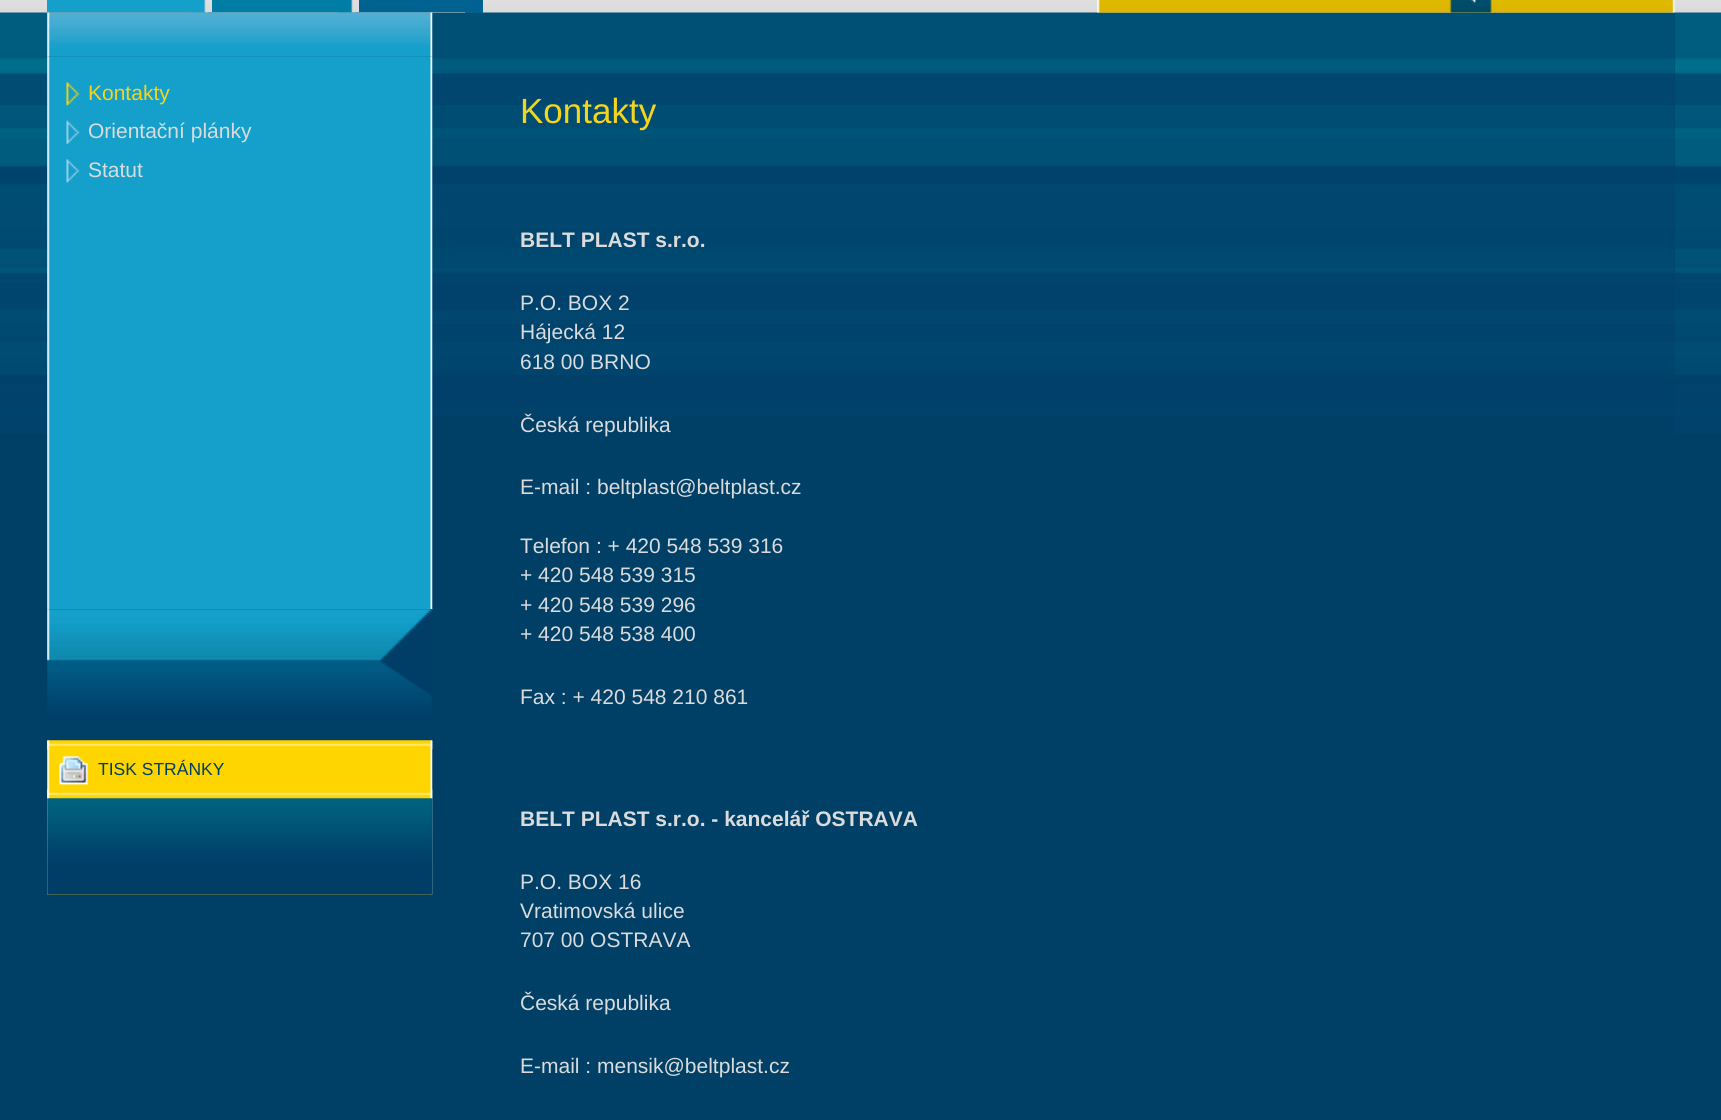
#include <cairo.h>
#include <math.h>
#include <stddef.h>


static void rgb(cairo_t *cr, int r, int g, int b)
{
	cairo_set_source_rgb(cr, r / 255.0, g / 255.0, b / 255.0);
}

static void face(cairo_t *cr, const char *family, double size, int italic, int bold)
{
	cairo_select_font_face(cr, family, italic ? CAIRO_FONT_SLANT_ITALIC : CAIRO_FONT_SLANT_NORMAL,
		bold ? CAIRO_FONT_WEIGHT_BOLD : CAIRO_FONT_WEIGHT_NORMAL);
	cairo_set_font_size(cr, size);
}

static void label(cairo_t *cr, double x, double y, const char *s)
{
	cairo_move_to(cr, x, y);
	cairo_show_text(cr, s);
}

static void rect(cairo_t *cr, double x, double y, double w, double h)
{
	cairo_rectangle(cr, x, y, w, h);
	cairo_fill(cr);
}

static void image(cairo_t *cr, const char *path, double x, double y, double w, double h)
{
	cairo_surface_t *image = cairo_image_surface_create_from_png(path);
	cairo_save(cr);
	cairo_set_source_surface(cr, image, x, y);
	cairo_rectangle(cr, x, y, w, h);
	cairo_fill(cr);
	cairo_restore(cr);
	cairo_surface_destroy(image);
}

static void draw(cairo_t *cr) {
	rgb(cr, 0, 64, 102);
	cairo_paint(cr);
	image(cr, "image0.png", 0, 0, 1721, 434);
	rgb(cr, 0, 64, 102);
	rect(cr, 47, 0, 1628, 434);
	image(cr, "image1.png", 47, 0, 1628, 417);
	rgb(cr, 21, 160, 203);
	rect(cr, 47, 0, 144, 12);
	image(cr, "image2.png", 190, 0, 19, 13);
	rgb(cr, 0, 125, 164);
	rect(cr, 212, 0, 126, 12);
	image(cr, "image3.png", 337, 0, 19, 13);
	rgb(cr, 0, 98, 144);
	rect(cr, 359, 0, 106, 12);
	rect(cr, 465, 0, 18, 13);
	image(cr, "image4.png", 1097, 0, 578, 13);
	image(cr, "image5.png", 1449, 0, 44, 13);
	image(cr, "image7.png", 47, 56, 386, 554);
	image(cr, "image6.png", 47, 12, 386, 45);
	image(cr, "image8.png", 66, 82, 14, 24);
	face(cr, "Liberation Sans", 21, 0, 0);
	rgb(cr, 245, 212, 30);
	label(cr, 88, 100, "Kontakty");
	image(cr, "image9.png", 66, 120, 14, 24);
	rgb(cr, 219, 219, 219);
	label(cr, 88, 138, "Orientační plánky");
	image(cr, "image10.png", 66, 159, 14, 24);
	label(cr, 88, 177, "Statut");
	image(cr, "image11.png", 47, 609, 386, 106);
	image(cr, "image12.png", 47, 740, 386, 155);
	image(cr, "image13.png", 47, 740, 386, 10);
	image(cr, "image14.png", 59, 755, 29, 30);
	face(cr, "Liberation Sans", 17.5, 0, 0);
	rgb(cr, 0, 64, 102);
	label(cr, 98, 775, "TISK STRÁNKY");
	image(cr, "image15.png", 47, 789, 386, 10);
	image(cr, "image16.png", 47, 798, 386, 97);
	face(cr, "Liberation Sans", 35, 0, 0);
	rgb(cr, 245, 212, 30);
	label(cr, 520, 123, "Kontakty");
	face(cr, "Liberation Sans", 21, 0, 1);
	rgb(cr, 219, 219, 219);
	label(cr, 520, 247, "BELT PLAST s.r.o.");
	face(cr, "Liberation Sans", 21, 0, 0);
	label(cr, 520, 310, "P.O. BOX 2");
	label(cr, 520, 339, "Hájecká 12");
	label(cr, 520, 369, "618 00 BRNO");
	label(cr, 520, 432, "Česká republika");
	label(cr, 520, 494, "E-mail : beltplast@beltplast.cz");
	label(cr, 520, 553, "Telefon : + 420 548 539 316");
	label(cr, 520, 582, "+ 420 548 539 315");
	label(cr, 520, 612, "+ 420 548 539 296");
	label(cr, 520, 641, "+ 420 548 538 400");
	label(cr, 520, 704, "Fax : + 420 548 210 861");
	face(cr, "Liberation Sans", 21, 0, 1);
	label(cr, 520, 826, "BELT PLAST s.r.o. - kancelář OSTRAVA");
	face(cr, "Liberation Sans", 21, 0, 0);
	label(cr, 520, 889, "P.O. BOX 16");
	label(cr, 520, 918, "Vratimovská ulice");
	label(cr, 520, 947, "707 00 OSTRAVA");
	label(cr, 520, 1010, "Česká republika");
	label(cr, 520, 1073, "E-mail : mensik@beltplast.cz");
}

int main(void) {
	cairo_surface_t *surface = cairo_image_surface_create(CAIRO_FORMAT_RGB24, 1721, 1120);
	cairo_t *cr = cairo_create(surface);
	cairo_font_options_t *options = cairo_font_options_create();
	cairo_font_options_set_hint_metrics(options, CAIRO_HINT_METRICS_OFF);
	cairo_font_options_set_hint_style(options, CAIRO_HINT_STYLE_NONE);
	cairo_set_font_options(cr, options);
	cairo_set_miter_limit(cr, 4);
	draw(cr);
	cairo_surface_write_to_png(surface, "render.png");
	cairo_font_options_destroy(options);
	cairo_destroy(cr);
	cairo_surface_destroy(surface);
	return 0;
}
